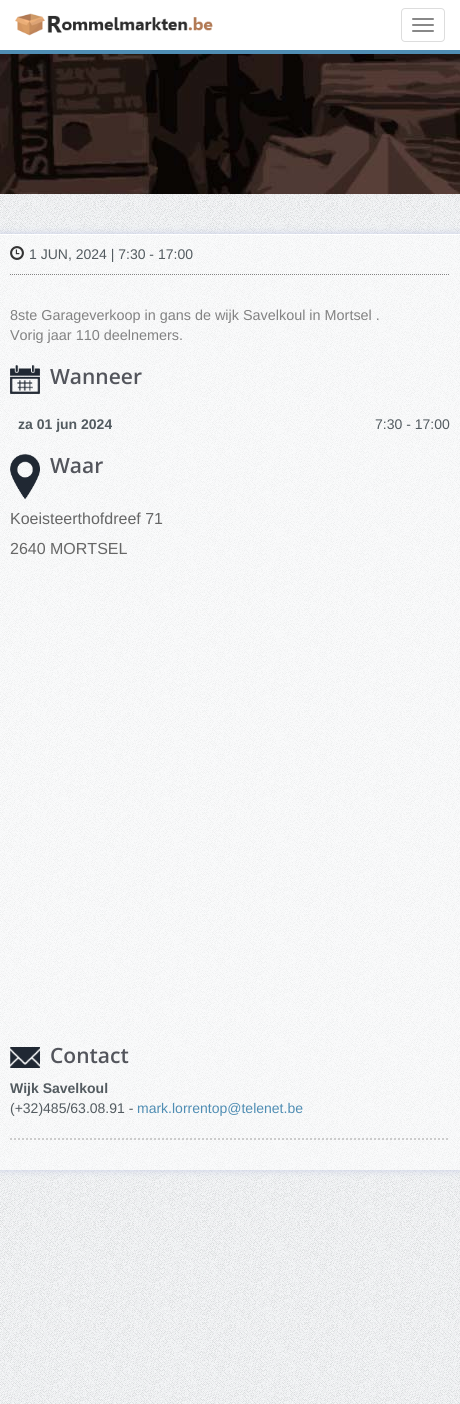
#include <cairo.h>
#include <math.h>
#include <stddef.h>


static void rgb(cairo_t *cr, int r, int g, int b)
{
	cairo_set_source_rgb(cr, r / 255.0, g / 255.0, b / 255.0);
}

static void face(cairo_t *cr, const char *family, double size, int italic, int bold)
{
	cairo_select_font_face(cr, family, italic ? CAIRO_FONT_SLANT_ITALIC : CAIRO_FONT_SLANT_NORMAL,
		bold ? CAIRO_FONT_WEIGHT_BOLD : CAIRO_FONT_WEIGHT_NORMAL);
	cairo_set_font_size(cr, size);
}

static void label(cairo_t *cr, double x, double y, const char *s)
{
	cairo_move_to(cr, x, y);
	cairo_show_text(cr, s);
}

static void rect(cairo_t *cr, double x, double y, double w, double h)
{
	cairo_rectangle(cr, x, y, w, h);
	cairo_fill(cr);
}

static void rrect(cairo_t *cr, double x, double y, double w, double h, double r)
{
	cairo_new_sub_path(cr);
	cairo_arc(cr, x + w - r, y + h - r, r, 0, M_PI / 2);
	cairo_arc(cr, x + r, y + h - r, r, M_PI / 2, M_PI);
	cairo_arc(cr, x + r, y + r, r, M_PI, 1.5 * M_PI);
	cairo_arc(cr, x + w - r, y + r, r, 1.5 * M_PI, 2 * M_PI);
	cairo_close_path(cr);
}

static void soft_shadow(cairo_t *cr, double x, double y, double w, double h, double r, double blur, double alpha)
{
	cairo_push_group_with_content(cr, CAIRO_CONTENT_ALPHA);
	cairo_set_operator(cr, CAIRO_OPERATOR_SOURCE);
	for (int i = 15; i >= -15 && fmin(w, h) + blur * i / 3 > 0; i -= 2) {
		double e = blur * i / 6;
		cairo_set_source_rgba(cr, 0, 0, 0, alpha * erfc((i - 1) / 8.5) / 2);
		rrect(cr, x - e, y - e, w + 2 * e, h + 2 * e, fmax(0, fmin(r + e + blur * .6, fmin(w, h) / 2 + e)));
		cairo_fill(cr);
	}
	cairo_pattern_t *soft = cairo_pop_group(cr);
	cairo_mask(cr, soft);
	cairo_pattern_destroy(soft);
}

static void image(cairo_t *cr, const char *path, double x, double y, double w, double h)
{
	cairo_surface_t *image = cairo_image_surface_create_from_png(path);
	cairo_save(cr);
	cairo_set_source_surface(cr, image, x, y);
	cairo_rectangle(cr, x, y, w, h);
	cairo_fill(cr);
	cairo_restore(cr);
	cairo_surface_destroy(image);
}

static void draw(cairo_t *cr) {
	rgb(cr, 255, 255, 255);
	cairo_paint(cr);
	image(cr, "image0.png", 0, 194, 460, 1210);
	rgb(cr, 79, 141, 179);
	rect(cr, 0, 50, 460, 4);
	image(cr, "image1.png", 15, 13, 198, 23);
	rrect(cr, 401.5, 8.5, 43, 33, 3.5);
	rgb(cr, 221, 221, 221);
	cairo_set_line_width(cr, 1);
	cairo_stroke(cr);
	rgb(cr, 136, 136, 136);
	rrect(cr, 412, 18, 22, 2, 1);
	cairo_fill(cr);
	rrect(cr, 412, 24, 22, 2, 1);
	cairo_fill(cr);
	rrect(cr, 412, 30, 22, 2, 1);
	cairo_fill(cr);
	image(cr, "image2.png", 0, 54, 460, 140);
	cairo_save(cr);
	cairo_set_fill_rule(cr, CAIRO_FILL_RULE_EVEN_ODD);
	cairo_new_path(cr);
	cairo_move_to(cr, 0, 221);
	cairo_line_to(cr, 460, 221);
	cairo_line_to(cr, 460, 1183);
	cairo_line_to(cr, 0, 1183);
	cairo_close_path(cr);
	cairo_move_to(cr, 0, 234);
	cairo_line_to(cr, 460, 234);
	cairo_line_to(cr, 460, 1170);
	cairo_line_to(cr, 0, 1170);
	cairo_close_path(cr);
	cairo_clip(cr);
	rgb(cr, 200, 207, 230);
	soft_shadow(cr, 0, 234, 460, 936, 0, 4, 1);
	cairo_restore(cr);
	cairo_set_source_rgba(cr, 1, 1, 1, 0.55);
	rect(cr, 0, 235, 460, 935);
	rgb(cr, 255, 255, 255);
	rect(cr, 0, 234, 460, 1);
	cairo_new_path(cr);
	cairo_move_to(cr, 10, 274.5);
	cairo_line_to(cr, 450, 274.5);
	rgb(cr, 130, 130, 130);
	cairo_set_dash(cr, (double[]){1, 1}, 2, 0);
	cairo_stroke(cr);
	image(cr, "image3.png", 10, 246, 14, 14);
	face(cr, "Liberation Sans", 14, 0, 0);
	rgb(cr, 83, 91, 96);
	label(cr, 29, 259, "1 JUN, 2024 | 7:30 - 17:00");
	cairo_new_path(cr);
	cairo_move_to(cr, 10, 1139);
	cairo_line_to(cr, 450, 1139);
	rgb(cr, 204, 204, 204);
	cairo_set_line_width(cr, 2);
	cairo_set_dash(cr, (double[]){2, 2}, 2, 0);
	cairo_stroke(cr);
	face(cr, "Liberation Sans", 14.4, 0, 0);
	rgb(cr, 130, 130, 130);
	label(cr, 10, 320, "8ste Garageverkoop in gans de wijk Savelkoul in Mortsel .");
	label(cr, 10, 340, "Vorig jaar 110 deelnemers.");
	image(cr, "image4.png", 10, 365, 30, 29);
	face(cr, "Open Sans SemiBold", 21, 0, 0);
	rgb(cr, 83, 85, 92);
	label(cr, 50, 384, "Wanneer");
	face(cr, "Liberation Sans", 14, 0, 1);
	rgb(cr, 83, 91, 96);
	label(cr, 18, 429, "za 01 jun 2024");
	face(cr, "Liberation Sans", 14, 0, 0);
	label(cr, 375, 429, "7:30 - 17:00");
	image(cr, "image5.png", 10, 454, 30, 45);
	face(cr, "Open Sans SemiBold", 21, 0, 0);
	rgb(cr, 83, 85, 92);
	label(cr, 50, 473, "Waar");
	face(cr, "Liberation Sans", 16, 0, 0);
	rgb(cr, 102, 102, 102);
	label(cr, 10, 524, "Koeisteerthofdreef 71");
	label(cr, 10, 554, "2640 MORTSEL");
	image(cr, "image6.png", 10, 1047, 30, 21);
	face(cr, "Open Sans SemiBold", 21, 0, 0);
	rgb(cr, 83, 85, 92);
	label(cr, 50, 1063, "Contact");
	face(cr, "Liberation Sans", 14, 0, 1);
	rgb(cr, 83, 91, 96);
	label(cr, 10, 1093, "Wijk Savelkoul");
	face(cr, "Liberation Sans", 14, 0, 0);
	label(cr, 10, 1113, "(+32)485/63.08.91 -");
	rgb(cr, 79, 141, 179);
	label(cr, 137, 1113, "mark.lorrentop@telenet.be");
}

int main(void) {
	cairo_surface_t *surface = cairo_image_surface_create(CAIRO_FORMAT_RGB24, 460, 1404);
	cairo_t *cr = cairo_create(surface);
	cairo_font_options_t *options = cairo_font_options_create();
	cairo_font_options_set_hint_metrics(options, CAIRO_HINT_METRICS_OFF);
	cairo_font_options_set_hint_style(options, CAIRO_HINT_STYLE_NONE);
	cairo_set_font_options(cr, options);
	cairo_set_miter_limit(cr, 4);
	draw(cr);
	cairo_surface_write_to_png(surface, "render.png");
	cairo_font_options_destroy(options);
	cairo_destroy(cr);
	cairo_surface_destroy(surface);
	return 0;
}
